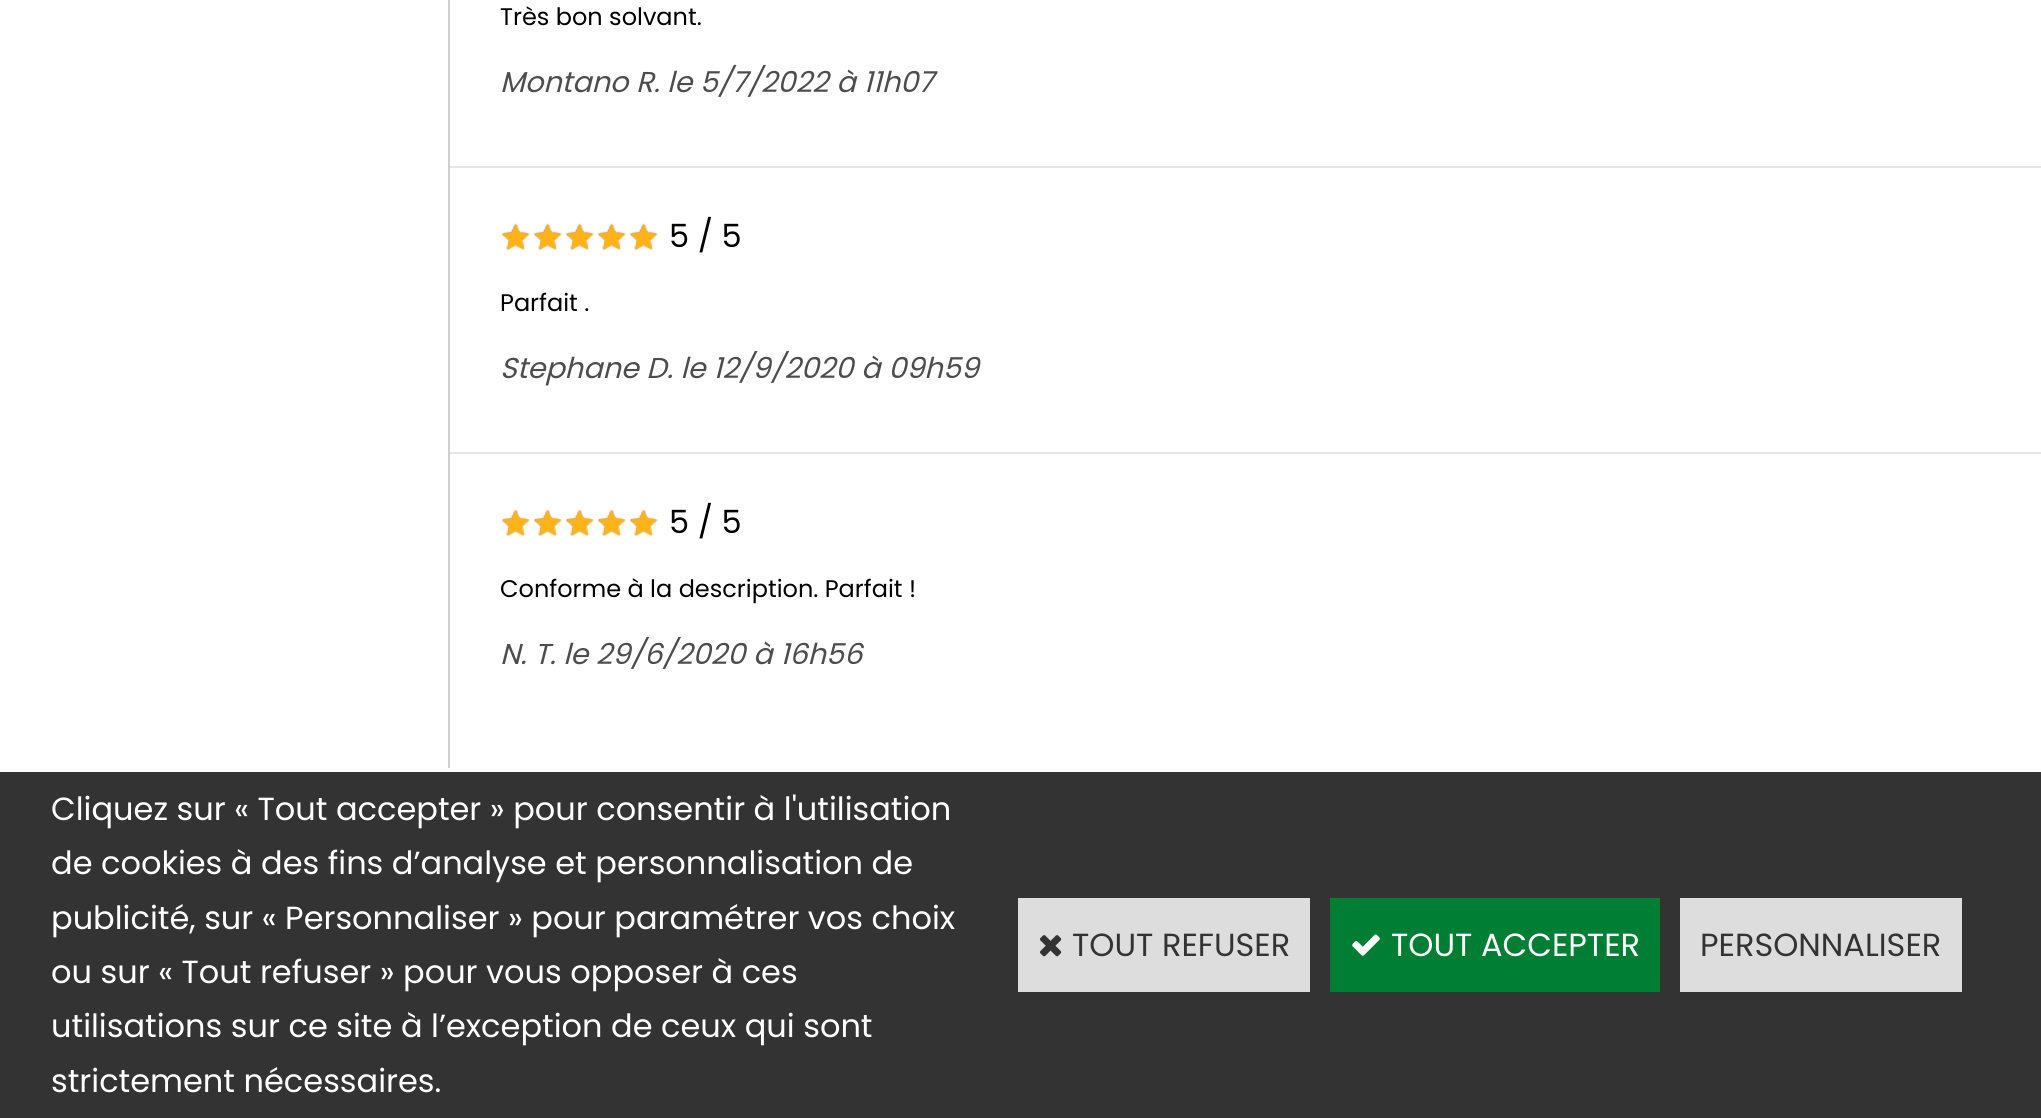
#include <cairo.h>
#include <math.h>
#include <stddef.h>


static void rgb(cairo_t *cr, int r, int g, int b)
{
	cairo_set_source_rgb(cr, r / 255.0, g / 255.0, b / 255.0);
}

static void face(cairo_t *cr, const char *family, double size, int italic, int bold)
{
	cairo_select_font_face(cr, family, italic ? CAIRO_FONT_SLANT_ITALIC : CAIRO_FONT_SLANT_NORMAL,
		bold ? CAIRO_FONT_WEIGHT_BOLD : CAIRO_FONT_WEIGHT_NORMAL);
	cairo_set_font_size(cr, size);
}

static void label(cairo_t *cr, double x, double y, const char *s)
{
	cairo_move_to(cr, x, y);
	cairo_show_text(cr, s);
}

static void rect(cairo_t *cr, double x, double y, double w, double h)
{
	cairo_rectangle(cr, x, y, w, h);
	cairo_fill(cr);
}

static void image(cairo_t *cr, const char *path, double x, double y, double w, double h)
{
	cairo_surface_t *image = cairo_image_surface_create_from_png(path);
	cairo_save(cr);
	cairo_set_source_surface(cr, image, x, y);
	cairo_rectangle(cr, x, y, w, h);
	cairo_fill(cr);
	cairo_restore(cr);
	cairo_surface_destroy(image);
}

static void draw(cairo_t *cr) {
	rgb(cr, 255, 255, 255);
	cairo_paint(cr);
	rgb(cr, 208, 208, 208);
	rect(cr, 448, 0, 2, 768);
	rgb(cr, 230, 230, 230);
	rect(cr, 450, 166, 1591, 2);
	face(cr, "Poppins", 24, 0, 0);
	rgb(cr, 0, 0, 0);
	label(cr, 500, 25, "Très bon solvant.");
	face(cr, "Poppins", 28.75, 1, 0);
	rgb(cr, 77, 77, 77);
	label(cr, 500, 92, "Montano R. le 5/7/2022 à 11h07");
	rgb(cr, 230, 230, 230);
	rect(cr, 450, 452, 1591, 2);
	image(cr, "image0.png", 502, 223, 156, 27);
	image(cr, "image1.png", 502, 223, 156, 27);
	face(cr, "Poppins", 32, 0, 0);
	rgb(cr, 0, 0, 0);
	label(cr, 669, 247, "5 / 5");
	face(cr, "Poppins", 24, 0, 0);
	label(cr, 500, 311, "Parfait .");
	face(cr, "Poppins", 28.75, 1, 0);
	rgb(cr, 77, 77, 77);
	label(cr, 500, 378, "Stephane D. le 12/9/2020 à 09h59");
	image(cr, "image0.png", 502, 509, 156, 27);
	image(cr, "image1.png", 502, 509, 156, 27);
	face(cr, "Poppins", 32, 0, 0);
	rgb(cr, 0, 0, 0);
	label(cr, 669, 533, "5 / 5");
	face(cr, "Poppins", 24, 0, 0);
	label(cr, 500, 597, "Conforme à la description. Parfait !");
	face(cr, "Poppins", 28.75, 1, 0);
	rgb(cr, 77, 77, 77);
	label(cr, 500, 664, "N. T. le 29/6/2020 à 16h56");
	image(cr, "image2.png", 0, 768, 2041, 4);
	rgb(cr, 51, 51, 51);
	rect(cr, 0, 772, 2041, 346);
	face(cr, "Poppins", 32, 0, 0);
	rgb(cr, 255, 255, 255);
	label(cr, 51, 820, "Cliquez sur « Tout accepter » pour consentir à l'utilisation");
	label(cr, 51, 874, "de cookies à des fins d’analyse et personnalisation de");
	label(cr, 51, 929, "publicité, sur « Personnaliser » pour paramétrer vos choix");
	label(cr, 51, 983, "ou sur « Tout refuser » pour vous opposer à ces");
	label(cr, 51, 1037, "utilisations sur ce site à l’exception de ceux qui sont");
	label(cr, 51, 1092, "strictement nécessaires.");
	rgb(cr, 221, 221, 221);
	rect(cr, 1018, 898, 292, 94);
	image(cr, "image3.png", 1040, 935, 22, 22);
	rgb(cr, 51, 51, 51);
	label(cr, 1072, 956, "TOUT REFUSER");
	rgb(cr, 0, 126, 51);
	rect(cr, 1330, 898, 330, 94);
	image(cr, "image4.png", 1352, 934, 28, 22);
	rgb(cr, 255, 255, 255);
	label(cr, 1391, 956, "TOUT ACCEPTER");
	rgb(cr, 221, 221, 221);
	rect(cr, 1680, 898, 282, 94);
	rgb(cr, 51, 51, 51);
	label(cr, 1700, 956, "PERSONNALISER");
}

int main(void) {
	cairo_surface_t *surface = cairo_image_surface_create(CAIRO_FORMAT_RGB24, 2041, 1118);
	cairo_t *cr = cairo_create(surface);
	cairo_font_options_t *options = cairo_font_options_create();
	cairo_font_options_set_hint_metrics(options, CAIRO_HINT_METRICS_OFF);
	cairo_font_options_set_hint_style(options, CAIRO_HINT_STYLE_NONE);
	cairo_set_font_options(cr, options);
	cairo_set_miter_limit(cr, 4);
	draw(cr);
	cairo_surface_write_to_png(surface, "render.png");
	cairo_font_options_destroy(options);
	cairo_destroy(cr);
	cairo_surface_destroy(surface);
	return 0;
}
